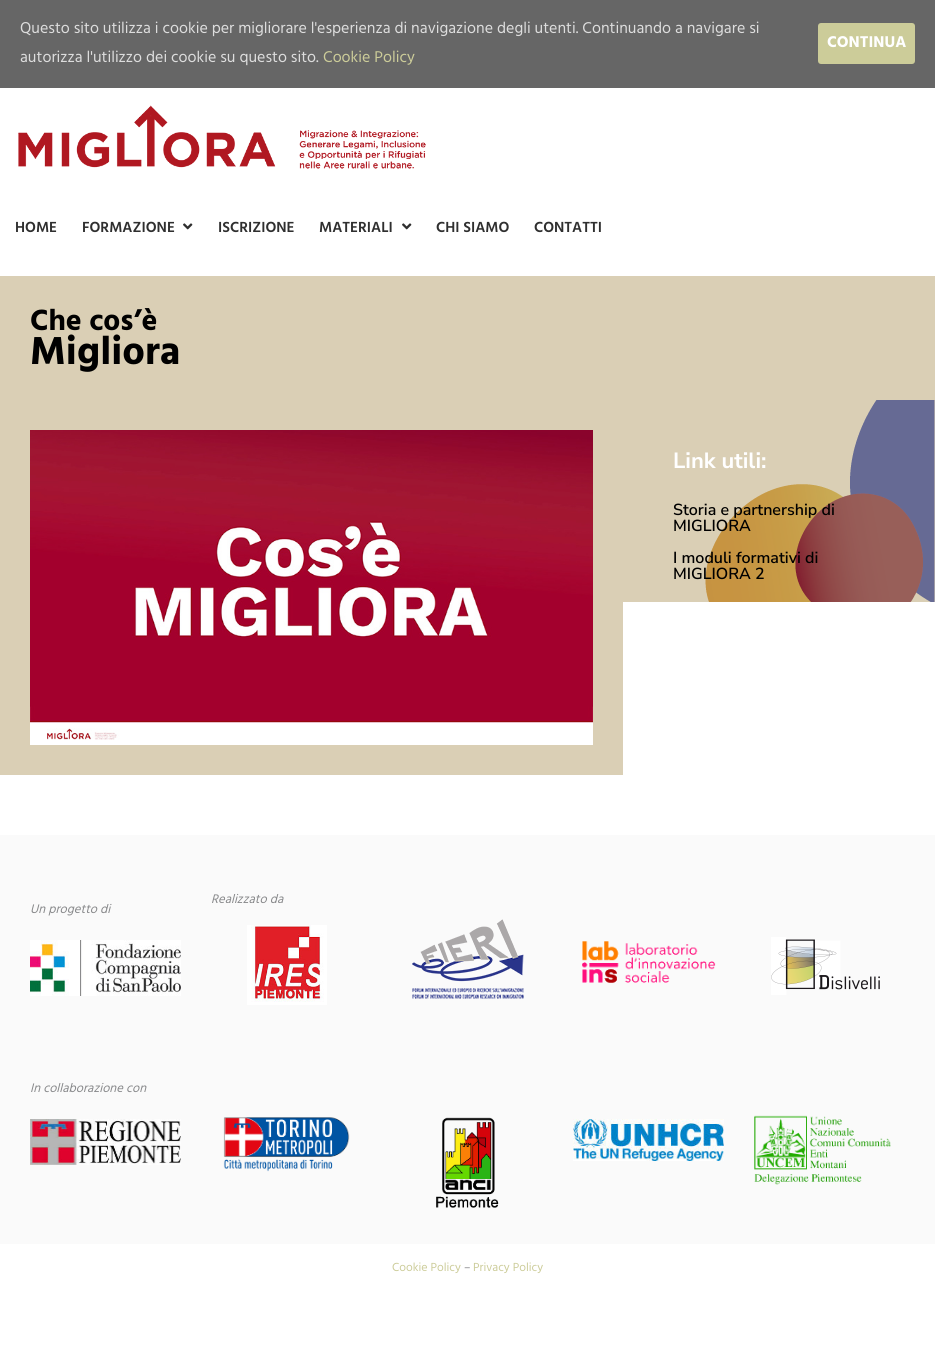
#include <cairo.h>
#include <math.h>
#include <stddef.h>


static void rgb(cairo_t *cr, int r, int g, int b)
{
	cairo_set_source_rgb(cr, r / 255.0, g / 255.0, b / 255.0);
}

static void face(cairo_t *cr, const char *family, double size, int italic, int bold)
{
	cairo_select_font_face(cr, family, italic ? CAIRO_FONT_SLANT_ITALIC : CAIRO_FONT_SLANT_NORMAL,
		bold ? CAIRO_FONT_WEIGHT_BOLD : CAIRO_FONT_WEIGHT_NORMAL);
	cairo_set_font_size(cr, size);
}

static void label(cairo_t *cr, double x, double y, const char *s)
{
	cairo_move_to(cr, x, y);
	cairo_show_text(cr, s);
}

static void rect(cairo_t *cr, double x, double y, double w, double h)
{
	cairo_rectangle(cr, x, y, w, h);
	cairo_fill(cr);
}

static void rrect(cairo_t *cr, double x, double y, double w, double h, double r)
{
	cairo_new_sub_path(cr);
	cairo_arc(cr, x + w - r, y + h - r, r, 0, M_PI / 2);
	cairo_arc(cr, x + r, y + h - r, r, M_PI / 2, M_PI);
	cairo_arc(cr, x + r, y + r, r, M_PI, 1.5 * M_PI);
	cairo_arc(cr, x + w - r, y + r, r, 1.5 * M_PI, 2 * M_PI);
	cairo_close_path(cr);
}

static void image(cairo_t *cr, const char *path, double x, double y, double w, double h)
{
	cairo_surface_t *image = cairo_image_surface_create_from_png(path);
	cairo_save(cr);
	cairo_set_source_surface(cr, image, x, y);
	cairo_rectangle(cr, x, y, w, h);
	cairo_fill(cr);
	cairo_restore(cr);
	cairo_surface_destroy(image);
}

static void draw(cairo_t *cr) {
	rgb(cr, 255, 255, 255);
	cairo_paint(cr);
	rgb(cr, 102, 102, 102);
	rect(cr, 0, 0, 935, 88);
	face(cr, "Hind", 16, 0, 0);
	rgb(cr, 221, 221, 221);
	label(cr, 20, 33, "Questo sito utilizza i cookie per migliorare l'esperienza di navigazione degli utenti. Continuando a navigare si");
	label(cr, 20, 62, "autorizza l'utilizzo dei cookie su questo sito.");
	rgb(cr, 204, 204, 153);
	label(cr, 323, 62, "Cookie Policy");
	rrect(cr, 818, 23, 97, 41, 3);
	cairo_fill(cr);
	face(cr, "Hind", 16, 0, 1);
	rgb(cr, 255, 255, 255);
	label(cr, 827, 47, "CONTINUA");
	image(cr, "image0.png", 18, 105, 408, 64);
	face(cr, "Hind SemiBold", 15, 0, 0);
	rgb(cr, 47, 47, 47);
	label(cr, 15, 232, "HOME");
	label(cr, 82, 232, "FORMAZIONE");
	image(cr, "image1.png", 183, 223, 10, 7);
	label(cr, 218, 232, "ISCRIZIONE");
	label(cr, 319, 232, "MATERIALI");
	image(cr, "image1.png", 402, 223, 10, 7);
	label(cr, 436, 232, "CHI SIAMO");
	label(cr, 534, 232, "CONTATTI");
	rgb(cr, 218, 207, 181);
	rect(cr, 0, 276, 935, 124);
	face(cr, "Hind", 30, 0, 1);
	rgb(cr, 0, 0, 0);
	label(cr, 30, 330, "Che cos’è");
	face(cr, "Hind", 40, 0, 1);
	label(cr, 30, 364, "Migliora");
	rgb(cr, 218, 207, 181);
	rect(cr, 0, 400, 623, 375);
	image(cr, "image2.png", 30, 430, 563, 315);
	rect(cr, 623, 400, 312, 202);
	image(cr, "image3.png", 705, 400, 230, 202);
	face(cr, "Nunito Sans", 22, 0, 1);
	rgb(cr, 255, 255, 255);
	label(cr, 673, 468, "Link utili:");
	face(cr, "Nunito Sans SemiBold", 16, 0, 0);
	rgb(cr, 0, 0, 0);
	label(cr, 673, 515, "Storia e partnership di");
	label(cr, 673, 531, "MIGLIORA");
	label(cr, 673, 563, "I moduli formativi di");
	label(cr, 673, 579, "MIGLIORA 2");
	rgb(cr, 250, 250, 250);
	rect(cr, 0, 835, 935, 409);
	face(cr, "Hind", 12.75, 1, 0);
	rgb(cr, 135, 136, 138);
	label(cr, 211, 903, "Realizzato da");
	image(cr, "image4.png", 247, 925, 80, 80);
	label(cr, 30, 913, "Un progetto di");
	image(cr, "image5.png", 30, 940, 151, 56);
	image(cr, "image6.png", 412, 919, 112, 80);
	image(cr, "image7.png", 582, 941, 134, 42);
	image(cr, "image8.png", 771, 937, 109, 58);
	label(cr, 30, 1092, "In collaborazione con");
	image(cr, "image9.png", 30, 1119, 151, 46);
	image(cr, "image10.png", 223, 1117, 127, 55);
	image(cr, "image11.png", 436, 1117, 63, 91);
	image(cr, "image12.png", 573, 1119, 151, 42);
	image(cr, "image13.png", 754, 1115, 137, 70);
	face(cr, "Hind", 12, 0, 0);
	rgb(cr, 204, 204, 153);
	label(cr, 392, 1271, "Cookie Policy");
	rgb(cr, 135, 136, 138);
	label(cr, 464, 1271, "–");
	rgb(cr, 204, 204, 153);
	label(cr, 473, 1271, "Privacy Policy");
}

int main(void) {
	cairo_surface_t *surface = cairo_image_surface_create(CAIRO_FORMAT_RGB24, 935, 1371);
	cairo_t *cr = cairo_create(surface);
	cairo_font_options_t *options = cairo_font_options_create();
	cairo_font_options_set_hint_metrics(options, CAIRO_HINT_METRICS_OFF);
	cairo_font_options_set_hint_style(options, CAIRO_HINT_STYLE_NONE);
	cairo_set_font_options(cr, options);
	cairo_set_miter_limit(cr, 4);
	draw(cr);
	cairo_surface_write_to_png(surface, "render.png");
	cairo_font_options_destroy(options);
	cairo_destroy(cr);
	cairo_surface_destroy(surface);
	return 0;
}
